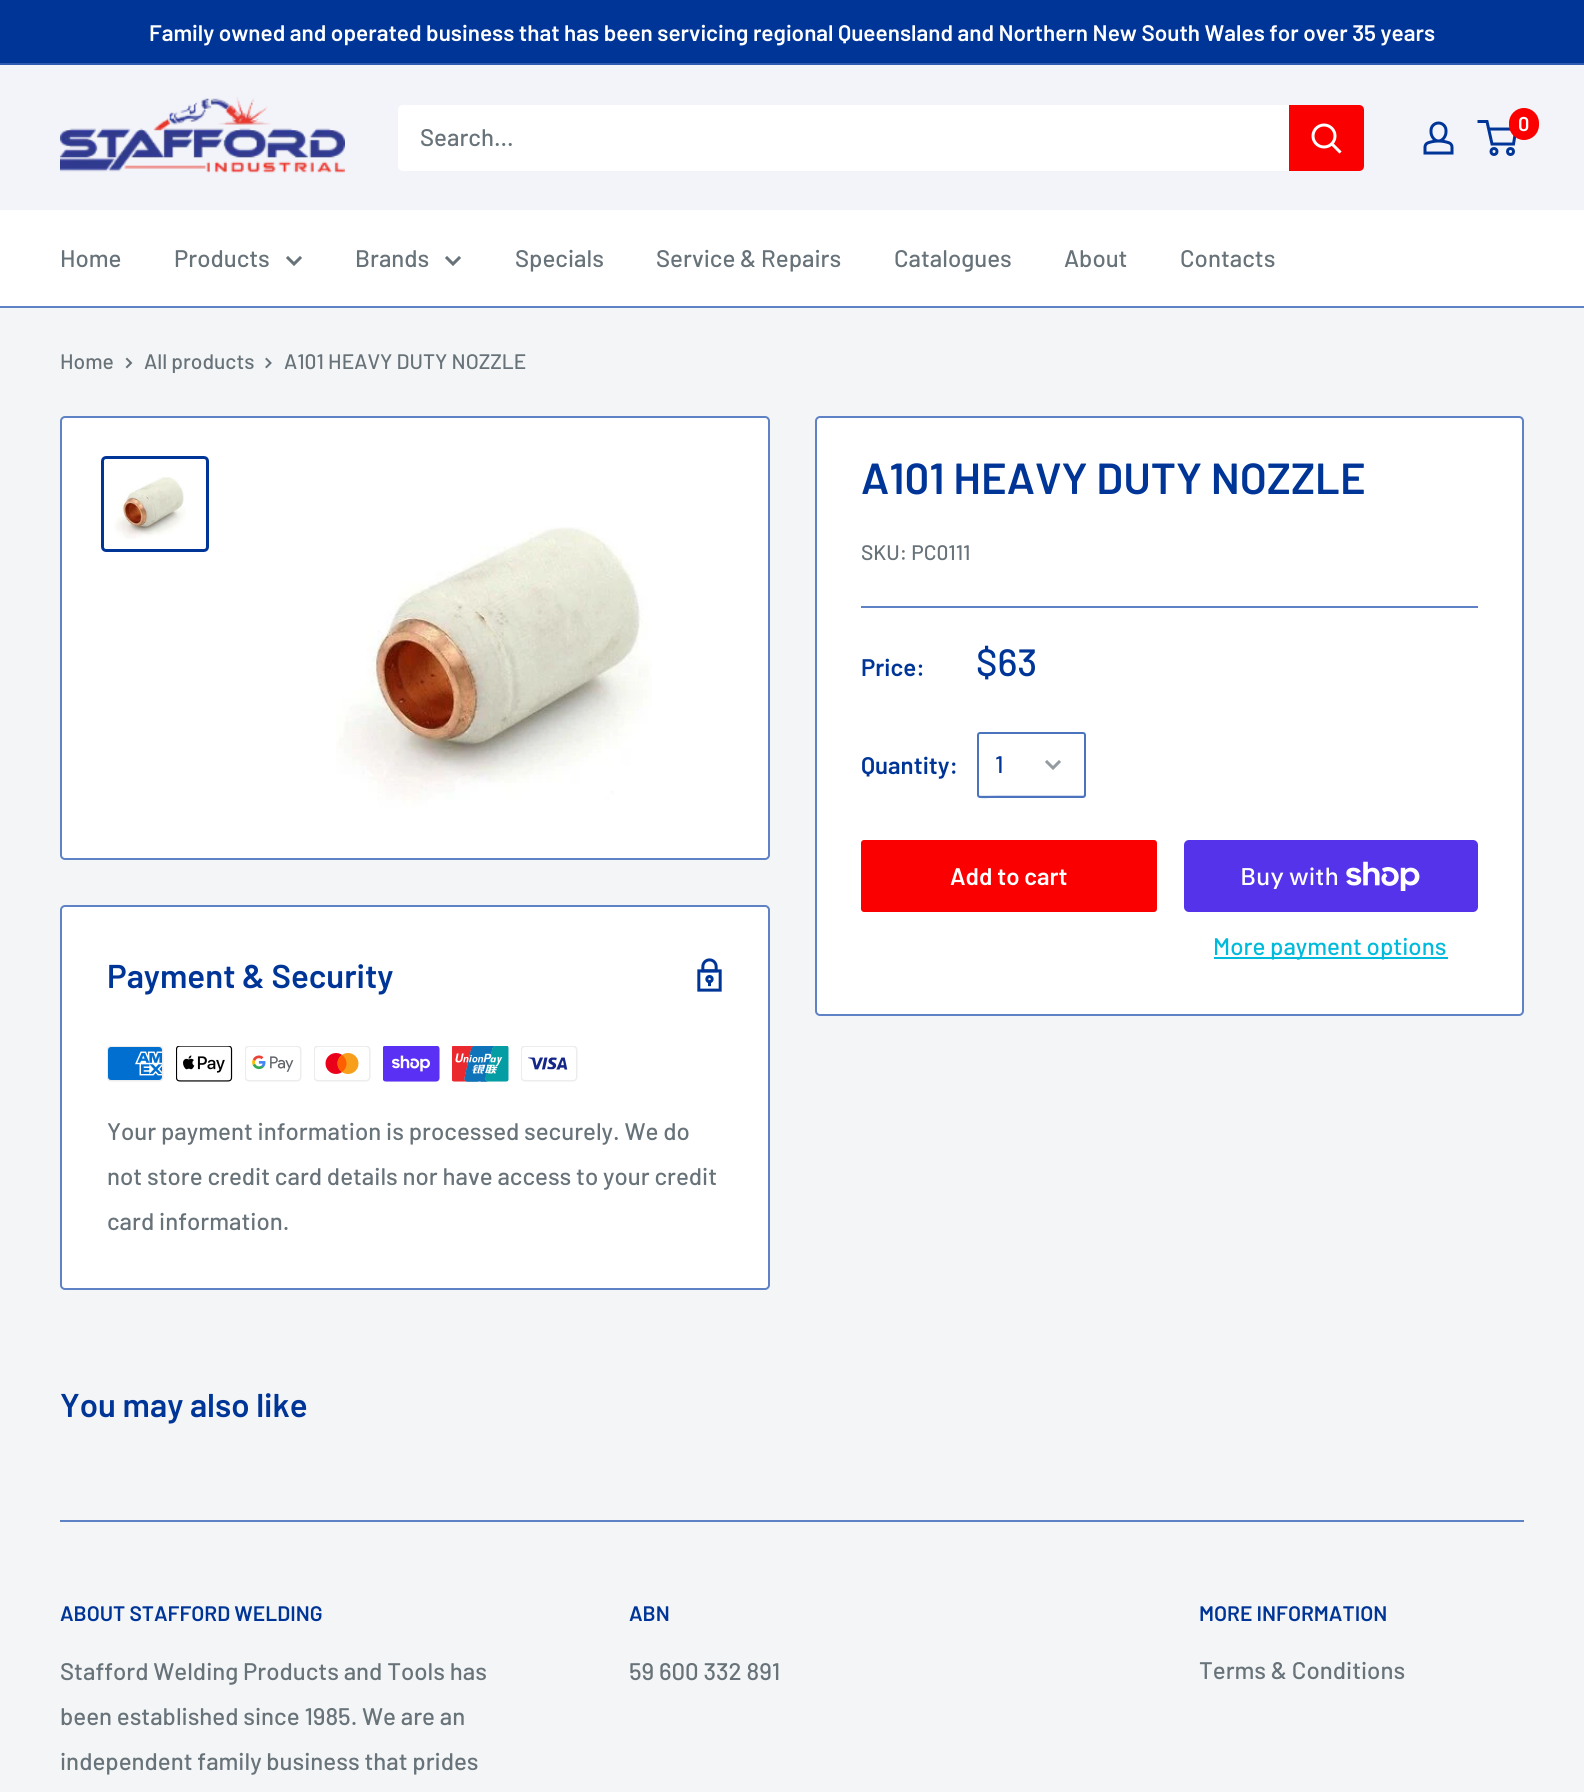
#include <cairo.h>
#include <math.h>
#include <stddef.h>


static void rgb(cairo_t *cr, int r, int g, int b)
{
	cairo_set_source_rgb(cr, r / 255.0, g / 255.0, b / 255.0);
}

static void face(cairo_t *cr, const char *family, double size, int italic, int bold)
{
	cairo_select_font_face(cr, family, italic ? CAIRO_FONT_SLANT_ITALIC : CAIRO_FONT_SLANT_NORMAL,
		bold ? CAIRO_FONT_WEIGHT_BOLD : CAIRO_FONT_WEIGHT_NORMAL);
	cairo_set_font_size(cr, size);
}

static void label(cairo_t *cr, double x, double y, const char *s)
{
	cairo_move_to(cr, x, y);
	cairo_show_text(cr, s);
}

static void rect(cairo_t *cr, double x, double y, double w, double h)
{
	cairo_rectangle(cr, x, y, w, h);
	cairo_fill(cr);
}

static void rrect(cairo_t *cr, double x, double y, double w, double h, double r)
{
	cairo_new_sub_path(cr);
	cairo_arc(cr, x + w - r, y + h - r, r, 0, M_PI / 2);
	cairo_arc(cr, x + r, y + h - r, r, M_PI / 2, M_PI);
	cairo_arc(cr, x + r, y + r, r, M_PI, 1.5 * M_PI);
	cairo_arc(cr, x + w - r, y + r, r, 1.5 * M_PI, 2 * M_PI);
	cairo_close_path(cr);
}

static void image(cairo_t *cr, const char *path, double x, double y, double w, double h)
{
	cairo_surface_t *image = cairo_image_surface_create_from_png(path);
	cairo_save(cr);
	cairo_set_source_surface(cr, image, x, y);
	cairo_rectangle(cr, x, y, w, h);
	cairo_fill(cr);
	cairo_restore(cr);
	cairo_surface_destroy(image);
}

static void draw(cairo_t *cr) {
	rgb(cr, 243, 245, 246);
	cairo_paint(cr);
	rgb(cr, 0, 53, 152);
	rect(cr, 0, 0, 1584, 63);
	rgb(cr, 49, 90, 178);
	rect(cr, 0, 63, 1584, 2);
	face(cr, "Barlow SemiBold", 22.5, 0, 0);
	rgb(cr, 255, 255, 255);
	label(cr, 149, 41, "Family owned and operated business that has been servicing regional Queensland and Northern New South Wales for over 35 years");
	rgb(cr, 243, 244, 250);
	rect(cr, 0, 65, 1584, 145);
	image(cr, "image0.png", 60, 97, 285, 76);
	image(cr, "image1.png", 1423, 121, 31, 34);
	cairo_arc(cr, 1494, 151.5, 3, 0, 2 * M_PI);
	rgb(cr, 0, 53, 152);
	cairo_set_line_width(cr, 3);
	cairo_stroke(cr);
	cairo_arc(cr, 1510.5, 151.5, 3, 0, 2 * M_PI);
	cairo_stroke(cr);
	cairo_new_path(cr);
	cairo_move_to(cr, 1488.5, 129);
	cairo_line_to(cr, 1516, 129);
	cairo_line_to(cr, 1513.5, 144);
	cairo_line_to(cr, 1492, 144);
	cairo_line_to(cr, 1487, 121.5);
	cairo_line_to(cr, 1477.5, 121.5);
	cairo_stroke(cr);
	rgb(cr, 250, 0, 0);
	rrect(cr, 1509, 108, 30, 32, 15);
	cairo_fill(cr);
	face(cr, "Barlow SemiBold", 20, 0, 0);
	rgb(cr, 255, 255, 255);
	label(cr, 1518, 131, "0");
	rrect(cr, 398, 105, 966, 66, 5);
	cairo_fill(cr);
	face(cr, "Barlow Medium", 24, 0, 0);
	rgb(cr, 103, 114, 121);
	label(cr, 420, 146, "Search...");
	rgb(cr, 250, 0, 0);
	cairo_new_path(cr);
	cairo_move_to(cr, 1289, 105);
	cairo_line_to(cr, 1359, 105);
	cairo_curve_to(cr, 1362, 105, 1364, 107, 1364, 110);
	cairo_line_to(cr, 1364, 166);
	cairo_curve_to(cr, 1364, 169, 1362, 171, 1359, 171);
	cairo_line_to(cr, 1289, 171);
	cairo_close_path(cr);
	cairo_fill(cr);
	cairo_new_path(cr);
	cairo_move_to(cr, 1339.5, 151.5);
	cairo_line_to(cr, 1332, 144);
	rgb(cr, 255, 255, 255);
	cairo_set_line_cap(cr, CAIRO_LINE_CAP_SQUARE);
	cairo_stroke(cr);
	cairo_arc(cr, 1324, 136, 11, 0, 2 * M_PI);
	cairo_set_line_cap(cr, CAIRO_LINE_CAP_BUTT);
	cairo_stroke(cr);
	rect(cr, 0, 210, 1584, 96);
	rgb(cr, 94, 130, 197);
	rect(cr, 0, 306, 1584, 2);
	rgb(cr, 103, 114, 121);
	label(cr, 60, 267, "Home");
	label(cr, 174, 267, "Products");
	cairo_new_path(cr);
	cairo_move_to(cr, 300, 258);
	cairo_line_to(cr, 294, 264);
	cairo_line_to(cr, 288, 258);
	cairo_set_line_cap(cr, CAIRO_LINE_CAP_SQUARE);
	cairo_stroke(cr);
	label(cr, 355, 267, "Brands");
	cairo_new_path(cr);
	cairo_move_to(cr, 459, 258);
	cairo_line_to(cr, 453, 264);
	cairo_line_to(cr, 447, 258);
	cairo_stroke(cr);
	label(cr, 515, 267, "Specials");
	label(cr, 656, 267, "Service & Repairs");
	label(cr, 894, 267, "Catalogues");
	label(cr, 1064, 267, "About");
	label(cr, 1180, 267, "Contacts");
	face(cr, "Barlow Medium", 21, 0, 0);
	label(cr, 60, 369, "Home");
	cairo_new_path(cr);
	cairo_move_to(cr, 127, 359);
	cairo_line_to(cr, 131, 363);
	cairo_line_to(cr, 127, 367);
	cairo_set_line_width(cr, 2);
	cairo_stroke(cr);
	label(cr, 144, 369, "All products");
	cairo_new_path(cr);
	cairo_move_to(cr, 266.5, 359);
	cairo_line_to(cr, 270.5, 363);
	cairo_line_to(cr, 266.5, 367);
	cairo_stroke(cr);
	label(cr, 284, 369, "A101 HEAVY DUTY NOZZLE");
	rgb(cr, 255, 255, 255);
	rrect(cr, 61, 417, 708, 442, 4);
	cairo_fill_preserve(cr);
	rgb(cr, 94, 130, 197);
	cairo_set_line_cap(cr, CAIRO_LINE_CAP_BUTT);
	cairo_stroke(cr);
	rrect(cr, 102.5, 457.5, 105, 93, 3.5);
	rgb(cr, 0, 53, 152);
	cairo_set_line_width(cr, 3);
	cairo_stroke(cr);
	image(cr, "image2.png", 114, 476, 72, 63);
	image(cr, "image3.png", 336, 527, 316, 280);
	rgb(cr, 255, 255, 255);
	rrect(cr, 816, 417, 707, 598, 4);
	cairo_fill_preserve(cr);
	rgb(cr, 94, 130, 197);
	cairo_set_line_width(cr, 2);
	cairo_stroke(cr);
	face(cr, "Barlow SemiBold", 43.5, 0, 0);
	rgb(cr, 0, 53, 152);
	label(cr, 861, 494, "A101 HEAVY DUTY NOZZLE");
	face(cr, "Barlow Medium", 21, 0, 0);
	rgb(cr, 103, 114, 121);
	label(cr, 861, 560, "SKU: PC0111");
	rgb(cr, 94, 130, 197);
	rect(cr, 861, 606, 617, 2);
	face(cr, "Barlow SemiBold", 24, 0, 0);
	rgb(cr, 0, 53, 152);
	label(cr, 861, 676, "Price:");
	face(cr, "Barlow Medium", 38, 0, 0);
	label(cr, 976, 676, "$63");
	face(cr, "Barlow SemiBold", 24, 0, 0);
	label(cr, 861, 774, "Quantity:");
	rgb(cr, 207, 218, 238);
	cairo_new_path(cr);
	cairo_move_to(cr, 978, 794);
	cairo_curve_to(cr, 978, 802, 992, 797, 997, 797);
	cairo_line_to(cr, 1066, 797);
	cairo_curve_to(cr, 1091, 797, 1085, 802, 1085, 776);
	cairo_line_to(cr, 1085, 735);
	cairo_line_to(cr, 1084, 750);
	cairo_line_to(cr, 1084, 794);
	cairo_line_to(cr, 1083, 795);
	cairo_line_to(cr, 997, 795);
	cairo_curve_to(cr, 993, 795, 982, 796, 979, 795);
	cairo_close_path(cr);
	cairo_fill(cr);
	rrect(cr, 978, 733, 107, 64, 2);
	rgb(cr, 75, 115, 190);
	cairo_stroke(cr);
	face(cr, "Barlow Medium", 24, 0, 0);
	rgb(cr, 0, 53, 152);
	label(cr, 995, 773, "1");
	cairo_new_path(cr);
	cairo_move_to(cr, 1059, 762);
	cairo_line_to(cr, 1053, 768);
	cairo_line_to(cr, 1047, 762);
	rgb(cr, 149, 156, 161);
	cairo_set_line_width(cr, 3);
	cairo_set_line_cap(cr, CAIRO_LINE_CAP_SQUARE);
	cairo_stroke(cr);
	rgb(cr, 250, 0, 0);
	rrect(cr, 861, 840, 296, 72, 3);
	cairo_fill(cr);
	face(cr, "Barlow SemiBold", 24, 0, 0);
	rgb(cr, 255, 255, 255);
	label(cr, 950, 885, "Add to cart");
	rgb(cr, 84, 51, 235);
	rrect(cr, 1184, 840, 294, 72, 5);
	cairo_fill(cr);
	face(cr, "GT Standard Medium", 24, 0, 0);
	rgb(cr, 255, 255, 255);
	label(cr, 1240, 885, "Buy with");
	image(cr, "image4.png", 1346, 861, 74, 30);
	rgb(cr, 0, 186, 219);
	rect(cr, 1214, 957, 234, 2);
	face(cr, "Barlow Medium", 24, 0, 0);
	label(cr, 1213, 955, "More payment options");
	rgb(cr, 255, 255, 255);
	rrect(cr, 61, 906, 708, 383, 4);
	cairo_fill_preserve(cr);
	rgb(cr, 94, 130, 197);
	cairo_set_line_width(cr, 2);
	cairo_set_line_cap(cr, CAIRO_LINE_CAP_BUTT);
	cairo_stroke(cr);
	face(cr, "Barlow SemiBold", 33, 0, 0);
	rgb(cr, 0, 53, 152);
	label(cr, 107, 988, "Payment & Security");
	image(cr, "image5.png", 697, 958, 25, 34);
	image(cr, "image6.png", 107, 1046, 57, 36);
	image(cr, "image7.png", 176, 1046, 57, 36);
	image(cr, "image8.png", 245, 1046, 57, 36);
	image(cr, "image9.png", 314, 1046, 57, 36);
	image(cr, "image10.png", 383, 1046, 57, 36);
	image(cr, "image11.png", 452, 1046, 57, 36);
	image(cr, "image12.png", 521, 1046, 57, 36);
	face(cr, "Barlow Medium", 24, 0, 0);
	rgb(cr, 103, 114, 121);
	label(cr, 107, 1140, "Your payment information is processed securely. We do");
	label(cr, 107, 1185, "not store credit card details nor have access to your credit");
	label(cr, 107, 1230, "card information.");
	face(cr, "Barlow SemiBold", 33, 0, 0);
	rgb(cr, 0, 53, 152);
	label(cr, 60, 1417, "You may also like");
	rgb(cr, 94, 130, 197);
	rect(cr, 60, 1520, 1464, 2);
	face(cr, "Barlow SemiBold", 21, 0, 0);
	rgb(cr, 0, 53, 152);
	label(cr, 60, 1621, "ABOUT STAFFORD WELDING");
	face(cr, "Barlow Medium", 24, 0, 0);
	rgb(cr, 103, 114, 121);
	label(cr, 60, 1680, "Stafford Welding Products and Tools has");
	label(cr, 60, 1725, "been established since 1985. We are an");
	label(cr, 60, 1770, "independent family business that prides");
	face(cr, "Barlow SemiBold", 21, 0, 0);
	rgb(cr, 0, 53, 152);
	label(cr, 629, 1621, "ABN");
	face(cr, "Barlow Medium", 24, 0, 0);
	rgb(cr, 103, 114, 121);
	label(cr, 629, 1680, "59 600 332 891");
	face(cr, "Barlow SemiBold", 21, 0, 0);
	rgb(cr, 0, 53, 152);
	label(cr, 1199, 1621, "MORE INFORMATION");
	face(cr, "Barlow Medium", 24, 0, 0);
	rgb(cr, 103, 114, 121);
	label(cr, 1199, 1679, "Terms & Conditions");
}

int main(void) {
	cairo_surface_t *surface = cairo_image_surface_create(CAIRO_FORMAT_RGB24, 1584, 1792);
	cairo_t *cr = cairo_create(surface);
	cairo_font_options_t *options = cairo_font_options_create();
	cairo_font_options_set_hint_metrics(options, CAIRO_HINT_METRICS_OFF);
	cairo_font_options_set_hint_style(options, CAIRO_HINT_STYLE_NONE);
	cairo_set_font_options(cr, options);
	cairo_set_miter_limit(cr, 4);
	draw(cr);
	cairo_surface_write_to_png(surface, "render.png");
	cairo_font_options_destroy(options);
	cairo_destroy(cr);
	cairo_surface_destroy(surface);
	return 0;
}
